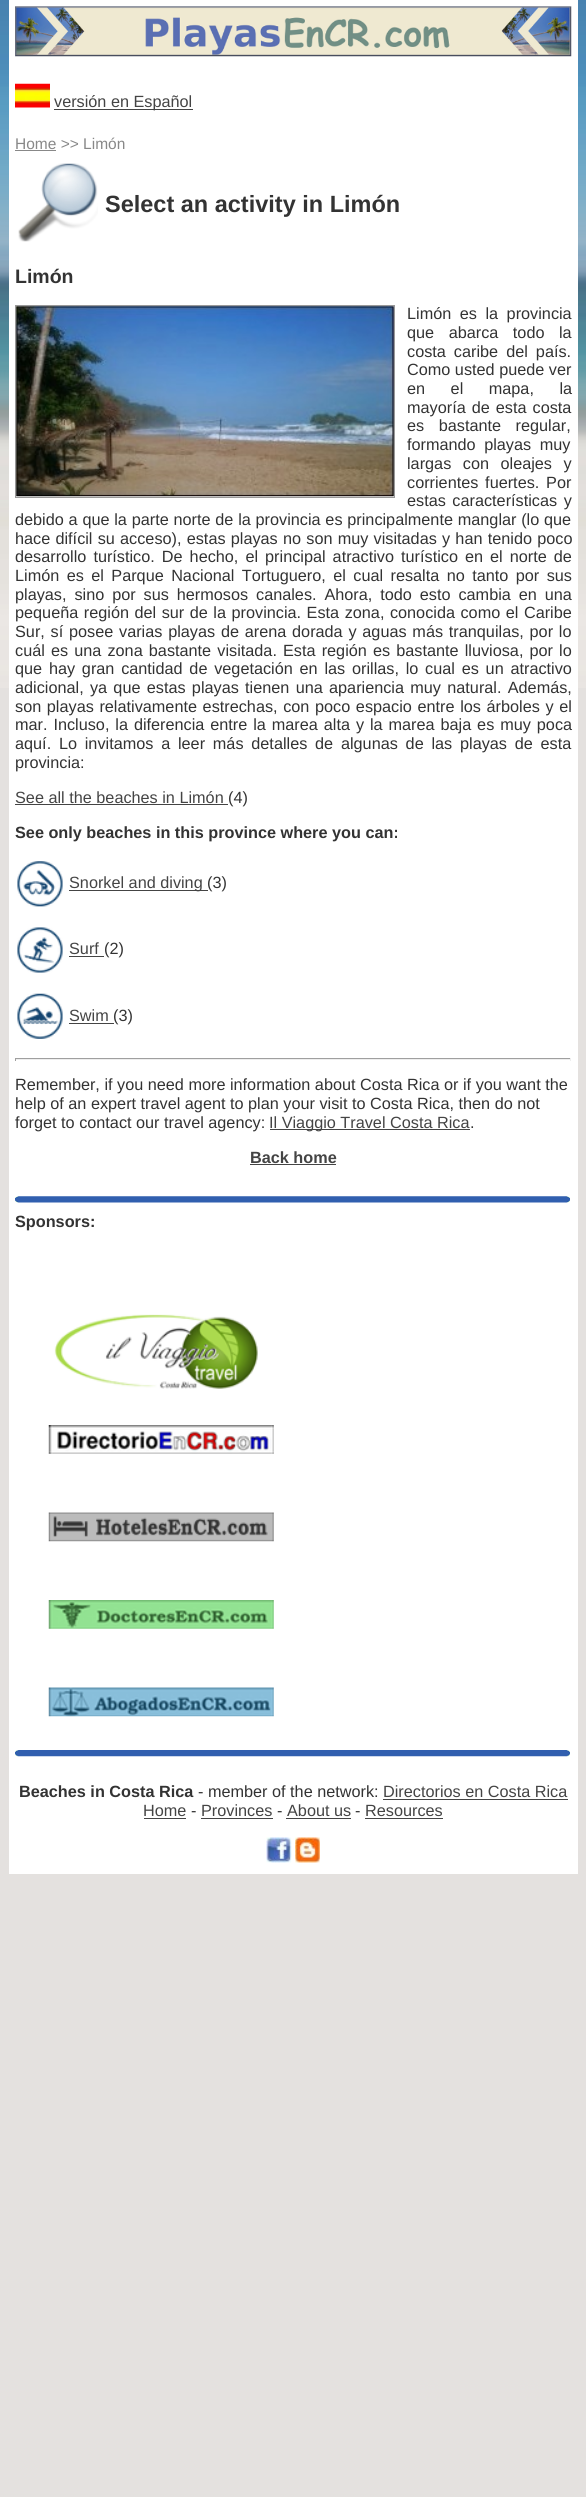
#include <cairo.h>
#include <math.h>
#include <stddef.h>


static void rgb(cairo_t *cr, int r, int g, int b)
{
	cairo_set_source_rgb(cr, r / 255.0, g / 255.0, b / 255.0);
}

static void face(cairo_t *cr, const char *family, double size, int italic, int bold)
{
	cairo_select_font_face(cr, family, italic ? CAIRO_FONT_SLANT_ITALIC : CAIRO_FONT_SLANT_NORMAL,
		bold ? CAIRO_FONT_WEIGHT_BOLD : CAIRO_FONT_WEIGHT_NORMAL);
	cairo_set_font_size(cr, size);
}

static void label(cairo_t *cr, double x, double y, const char *s)
{
	cairo_move_to(cr, x, y);
	cairo_show_text(cr, s);
}

static void tracked(cairo_t *cr, double x, double y, const char *s, double letter, double word)
{
	cairo_move_to(cr, x, y);
	while (*s) {
		char ch[5] = {0};
		int n = 0;
		do ch[n++] = *s++; while ((*s & 0xC0) == 0x80);
		cairo_show_text(cr, ch);
		cairo_rel_move_to(cr, letter + word * (*ch == ' '), 0);
	}
}

static void rect(cairo_t *cr, double x, double y, double w, double h)
{
	cairo_rectangle(cr, x, y, w, h);
	cairo_fill(cr);
}

static void image(cairo_t *cr, const char *path, double x, double y, double w, double h)
{
	cairo_surface_t *image = cairo_image_surface_create_from_png(path);
	cairo_save(cr);
	cairo_set_source_surface(cr, image, x, y);
	cairo_rectangle(cr, x, y, w, h);
	cairo_fill(cr);
	cairo_restore(cr);
	cairo_surface_destroy(image);
}

static void draw(cairo_t *cr) {
	rgb(cr, 228, 225, 223);
	cairo_paint(cr);
	image(cr, "image0.png", 0, 0, 586, 688);
	rgb(cr, 255, 255, 255);
	rect(cr, 9, 0, 569, 1874);
	image(cr, "image1.png", 15, 6, 557, 51);
	image(cr, "image2.png", 15, 83, 35, 25);
	rgb(cr, 68, 68, 68);
	rect(cr, 54, 109, 139, 1);
	face(cr, "Liberation Sans", 16.25, 0, 0);
	label(cr, 54, 107, "versión en Español");
	face(cr, "Liberation Sans", 15.5, 0, 0);
	rgb(cr, 136, 136, 136);
	label(cr, 15, 149, "Home >> Limón");
	rect(cr, 15, 150, 41, 1);
	image(cr, "image3.png", 18, 163, 80, 79);
	face(cr, "Liberation Sans", 23.5, 0, 1);
	rgb(cr, 51, 51, 51);
	label(cr, 105, 212, "Select an activity in Limón");
	face(cr, "Liberation Sans", 19.5, 0, 1);
	label(cr, 15, 283, "Limón");
	cairo_rectangle(cr, 15.5, 305.5, 379, 192);
	rgb(cr, 153, 153, 153);
	cairo_set_line_width(cr, 1);
	cairo_stroke(cr);
	image(cr, "image4.png", 16, 306, 378, 191);
	face(cr, "Liberation Sans", 16.25, 0, 0);
	rgb(cr, 51, 51, 51);
	tracked(cr, 407, 319, "Limón es la provincia", 0, 4);
	tracked(cr, 407, 338, "que abarca todo la", 0, 10);
	tracked(cr, 407, 357, "costa caribe del país.", 0, 3.5);
	label(cr, 407, 375, "Como usted puede ver");
	tracked(cr, 407, 394, "en el mapa, la", 0, 21);
	tracked(cr, 407, 413, "mayoría de esta costa", 0, 1.5);
	tracked(cr, 407, 431, "es bastante regular,", 0, 10);
	tracked(cr, 407, 450, "formando playas muy", 0, 4);
	tracked(cr, 407, 469, "largas con oleajes y", 0, 7);
	tracked(cr, 407, 488, "corrientes fuertes. Por", 0, 2.25);
	tracked(cr, 407, 506, "estas características y", 0, 2);
	tracked(cr, 15, 525, "debido a que la parte norte de la provincia es principalmente manglar (lo que", 0, 0.25);
	tracked(cr, 15, 544, "hace difícil su acceso), estas playas no son muy visitadas y han tenido poco", 0, 0.7);
	tracked(cr, 15, 562, "desarrollo turístico. De hecho, el principal atractivo turístico en el norte de", 0, 2.5);
	tracked(cr, 15, 581, "Limón es el Parque Nacional Tortuguero, el cual resalta no tanto por sus", 0, 2.9);
	tracked(cr, 15, 600, "playas, sino por sus hermosos canales. Ahora, todo esto cambia en una", 0, 3.4);
	tracked(cr, 15, 618, "pequeña región del sur de la provincia. Esta zona, conocida como el Caribe", 0, 1);
	tracked(cr, 15, 637, "Sur, sí posee varias playas de arena dorada y aguas más tranquilas, por lo", 0, 1.25);
	tracked(cr, 15, 656, "cuál es una zona bastante visitada. Esta región es bastante lluviosa, por lo", 0, 1.6);
	tracked(cr, 15, 674, "que hay gran cantidad de vegetación en las orillas, lo cual es un atractivo", 0, 2.25);
	tracked(cr, 15, 693, "adicional, ya que estas playas tienen una apariencia muy natural. Además,", 0, 1.75);
	tracked(cr, 15, 712, "son playas relativamente estrechas, con poco espacio entre los árboles y el", 0, 1.1);
	tracked(cr, 15, 730, "mar. Incluso, la diferencia entre la marea alta y la marea baja es muy poca", 0, 1.4);
	tracked(cr, 15, 749, "aquí. Lo invitamos a leer más detalles de algunas de las playas de esta", 0, 3.25);
	label(cr, 15, 768, "provincia:");
	rgb(cr, 68, 68, 68);
	label(cr, 15, 803, "See all the beaches in Limón");
	rect(cr, 15, 804, 213, 1);
	rgb(cr, 51, 51, 51);
	label(cr, 228, 803, "(4)");
	face(cr, "Liberation Sans", 16.25, 0, 1);
	label(cr, 15, 838, "See only beaches in this province where you can:");
	image(cr, "image5.png", 17, 861, 46, 46);
	rgb(cr, 68, 68, 68);
	rect(cr, 69, 890, 139, 1);
	face(cr, "Liberation Sans", 16.25, 0, 0);
	label(cr, 69, 888, "Snorkel and diving");
	rgb(cr, 51, 51, 51);
	label(cr, 207, 888, "(3)");
	image(cr, "image6.png", 17, 927, 46, 46);
	rgb(cr, 68, 68, 68);
	label(cr, 69, 954, "Surf");
	rect(cr, 69, 956, 35, 1);
	rgb(cr, 51, 51, 51);
	label(cr, 104, 954, "(2)");
	image(cr, "image7.png", 17, 993, 46, 46);
	rgb(cr, 68, 68, 68);
	label(cr, 69, 1021, "Swim");
	rect(cr, 69, 1023, 45, 1);
	rgb(cr, 51, 51, 51);
	label(cr, 113, 1021, "(3)");
	rgb(cr, 159, 159, 159);
	rect(cr, 15, 1058, 556, 1);
	rgb(cr, 238, 238, 238);
	rect(cr, 570, 1058, 1, 3);
	rect(cr, 15, 1059, 556, 1);
	rgb(cr, 159, 159, 159);
	rect(cr, 15, 1058, 1, 3);
	rgb(cr, 51, 51, 51);
	label(cr, 15, 1090, "Remember, if you need more information about Costa Rica or if you want the");
	label(cr, 15, 1109, "help of an expert travel agent to plan your visit to Costa Rica, then do not");
	label(cr, 15, 1128, "forget to contact our travel agency:");
	rgb(cr, 68, 68, 68);
	rect(cr, 270, 1129, 200, 1);
	label(cr, 269, 1128, "Il Viaggio Travel Costa Rica");
	rgb(cr, 51, 51, 51);
	label(cr, 470, 1128, ".");
	face(cr, "Liberation Sans", 16.25, 0, 1);
	rgb(cr, 68, 68, 68);
	label(cr, 250, 1163, "Back home");
	rect(cr, 250, 1164, 86, 1);
	image(cr, "image8.png", 15, 1196, 555, 7);
	rgb(cr, 51, 51, 51);
	label(cr, 15, 1227, "Sponsors:");
	image(cr, "image9.png", 54, 1314, 204, 75);
	image(cr, "image10.png", 48, 1425, 226, 29);
	image(cr, "image11.png", 48, 1512, 226, 30);
	image(cr, "image12.png", 48, 1600, 226, 29);
	image(cr, "image13.png", 48, 1687, 226, 30);
	image(cr, "image14.png", 15, 1750, 555, 7);
	label(cr, 19, 1797, "Beaches in Costa Rica");
	face(cr, "Liberation Sans", 16.25, 0, 0);
	label(cr, 198, 1797, "- member of the network:");
	rgb(cr, 68, 68, 68);
	label(cr, 383, 1797, "Directorios en Costa Rica");
	rect(cr, 383, 1799, 185, 1);
	label(cr, 143, 1816, "Home");
	rect(cr, 144, 1818, 42, 1);
	rgb(cr, 51, 51, 51);
	label(cr, 191, 1816, "-");
	rgb(cr, 68, 68, 68);
	label(cr, 201, 1816, "Provinces");
	rect(cr, 201, 1818, 72, 1);
	rgb(cr, 51, 51, 51);
	label(cr, 277, 1816, "-");
	rgb(cr, 68, 68, 68);
	label(cr, 287, 1816, "About us");
	rect(cr, 286, 1818, 65, 1);
	rgb(cr, 51, 51, 51);
	label(cr, 355, 1816, "-");
	rgb(cr, 68, 68, 68);
	label(cr, 365, 1816, "Resources");
	rect(cr, 365, 1818, 78, 1);
	image(cr, "image15.png", 266, 1837, 26, 26);
	image(cr, "image16.png", 295, 1837, 25, 26);
}

int main(void) {
	cairo_surface_t *surface = cairo_image_surface_create(CAIRO_FORMAT_RGB24, 586, 2497);
	cairo_t *cr = cairo_create(surface);
	cairo_font_options_t *options = cairo_font_options_create();
	cairo_font_options_set_hint_metrics(options, CAIRO_HINT_METRICS_OFF);
	cairo_font_options_set_hint_style(options, CAIRO_HINT_STYLE_NONE);
	cairo_set_font_options(cr, options);
	cairo_set_miter_limit(cr, 4);
	draw(cr);
	cairo_surface_write_to_png(surface, "render.png");
	cairo_font_options_destroy(options);
	cairo_destroy(cr);
	cairo_surface_destroy(surface);
	return 0;
}
